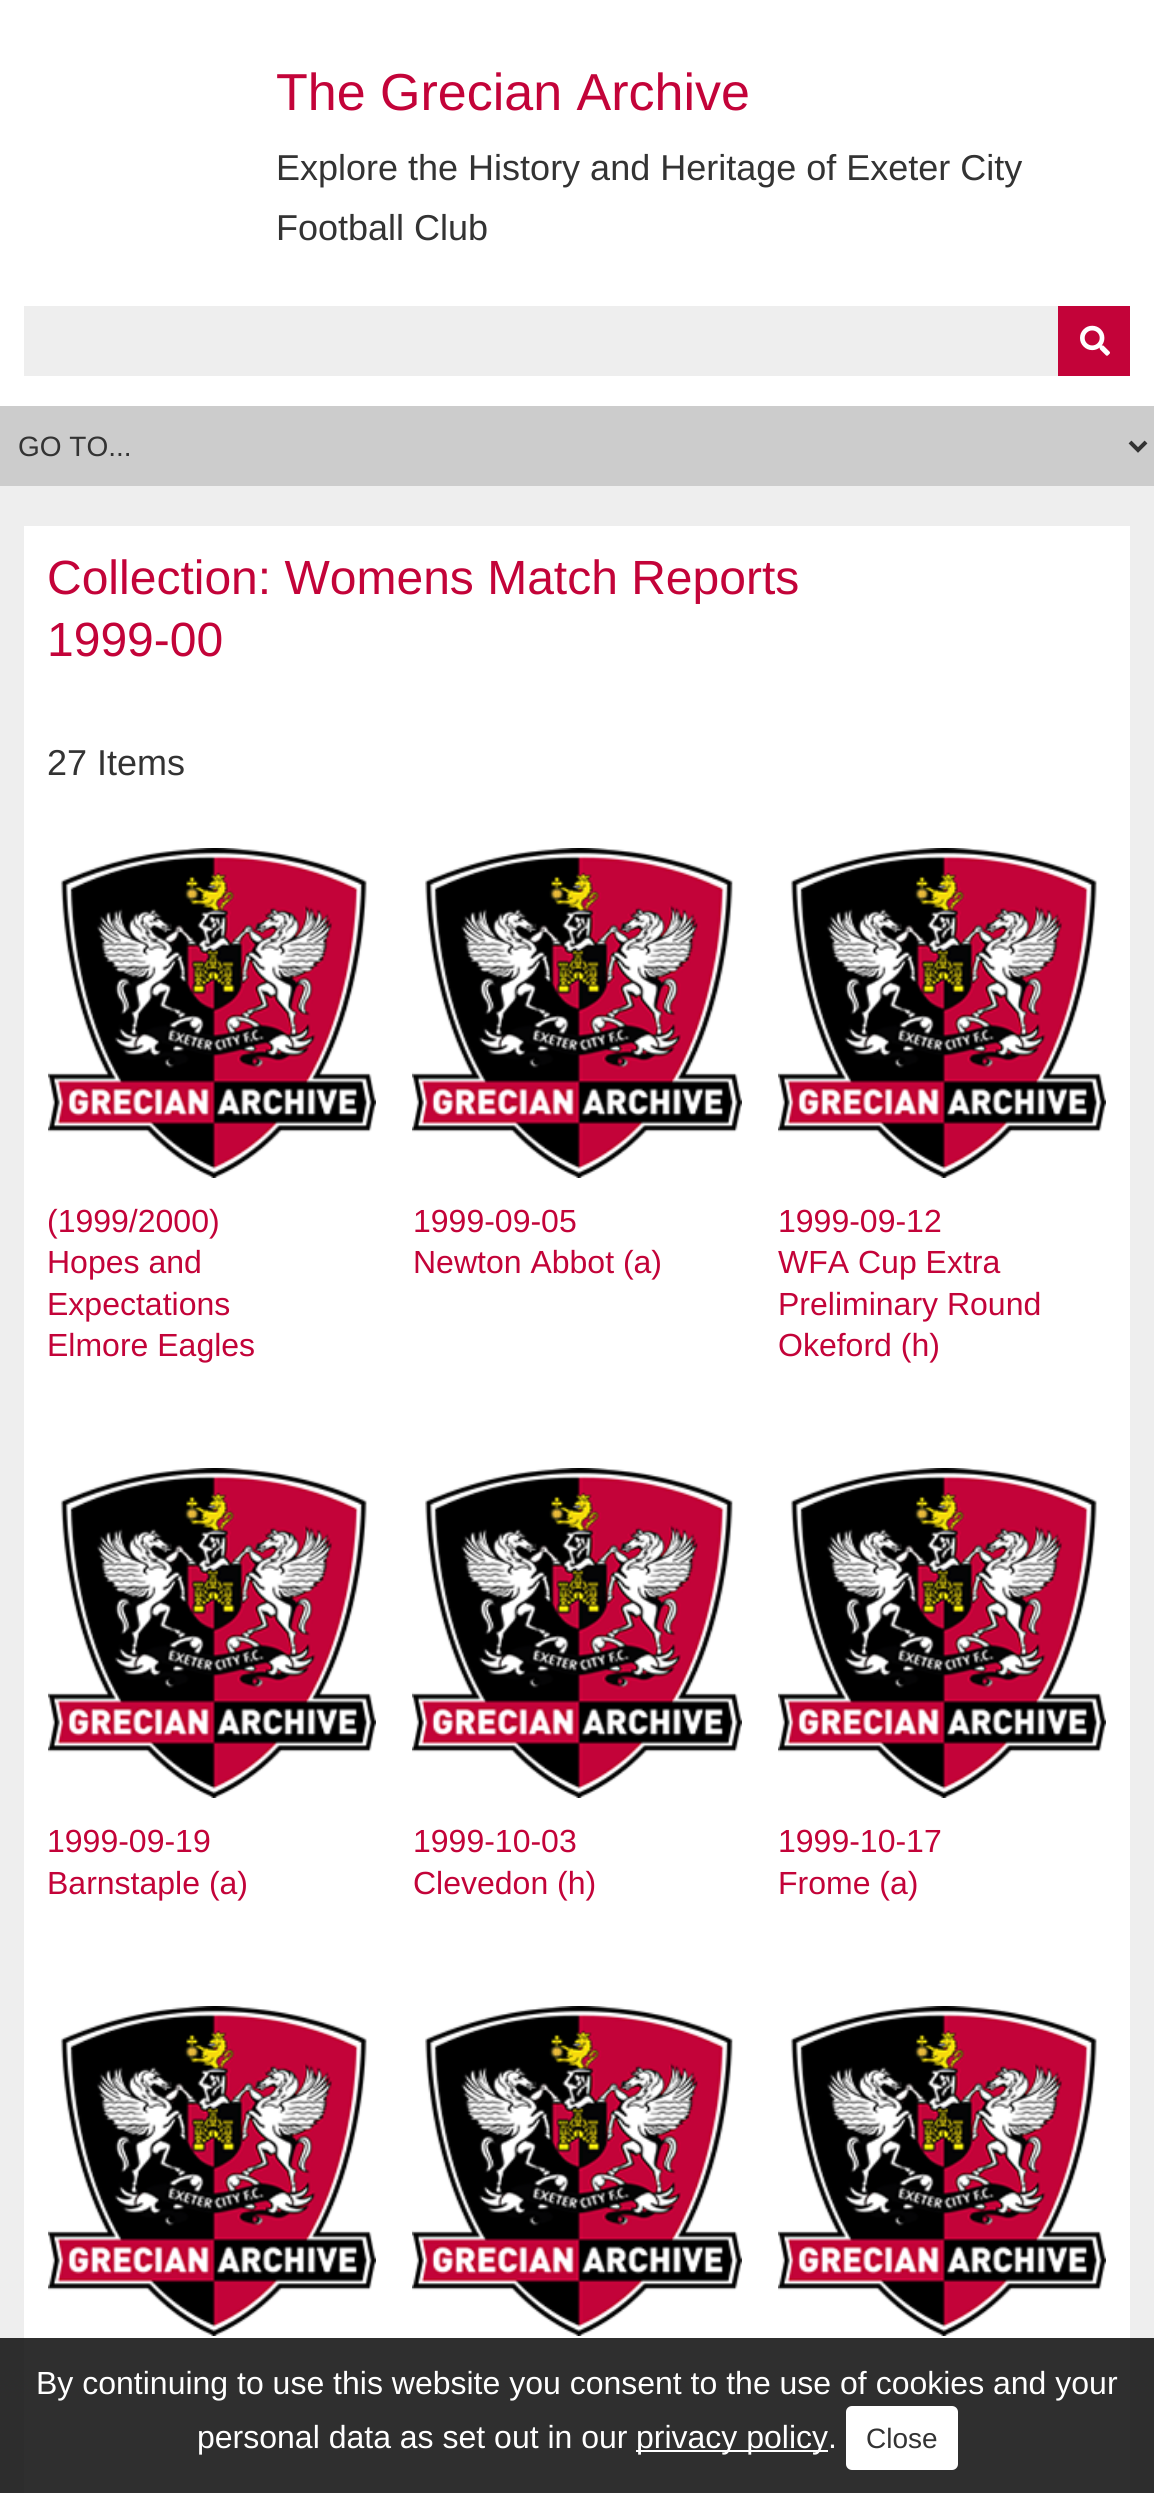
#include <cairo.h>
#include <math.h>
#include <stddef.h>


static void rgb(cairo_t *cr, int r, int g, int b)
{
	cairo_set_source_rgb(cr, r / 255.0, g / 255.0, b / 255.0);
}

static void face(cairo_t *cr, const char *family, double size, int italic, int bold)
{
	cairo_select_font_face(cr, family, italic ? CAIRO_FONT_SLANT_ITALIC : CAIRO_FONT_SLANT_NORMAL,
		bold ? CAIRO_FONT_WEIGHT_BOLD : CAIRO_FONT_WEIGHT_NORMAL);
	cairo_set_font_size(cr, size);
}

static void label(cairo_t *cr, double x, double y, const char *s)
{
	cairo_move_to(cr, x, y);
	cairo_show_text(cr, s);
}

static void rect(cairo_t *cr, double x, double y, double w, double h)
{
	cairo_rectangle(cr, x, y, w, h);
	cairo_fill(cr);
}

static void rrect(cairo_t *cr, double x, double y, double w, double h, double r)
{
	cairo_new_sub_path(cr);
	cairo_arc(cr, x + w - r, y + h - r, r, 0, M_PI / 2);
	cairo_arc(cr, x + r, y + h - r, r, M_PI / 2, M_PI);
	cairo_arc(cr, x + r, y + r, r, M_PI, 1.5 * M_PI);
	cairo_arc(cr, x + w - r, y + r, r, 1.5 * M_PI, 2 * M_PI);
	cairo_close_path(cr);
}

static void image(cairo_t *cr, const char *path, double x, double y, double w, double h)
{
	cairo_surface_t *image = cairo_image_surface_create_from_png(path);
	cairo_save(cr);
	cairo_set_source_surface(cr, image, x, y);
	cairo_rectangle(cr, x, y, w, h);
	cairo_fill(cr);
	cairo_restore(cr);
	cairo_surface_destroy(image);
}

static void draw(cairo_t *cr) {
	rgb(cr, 255, 255, 255);
	cairo_paint(cr);
	face(cr, "Liberation Sans", 52, 0, 0);
	rgb(cr, 195, 3, 57);
	label(cr, 276, 110, "The Grecian Archive");
	face(cr, "Liberation Sans", 36, 0, 0);
	rgb(cr, 51, 51, 51);
	label(cr, 276, 180, "Explore the History and Heritage of Exeter City");
	label(cr, 276, 240, "Football Club");
	rgb(cr, 238, 238, 238);
	rect(cr, 24, 306, 1034, 70);
	rgb(cr, 195, 3, 57);
	rect(cr, 1058, 306, 72, 70);
	image(cr, "image0.png", 1080, 325, 30, 31);
	rgb(cr, 204, 204, 204);
	rect(cr, 0, 406, 1154, 80);
	cairo_new_path(cr);
	cairo_move_to(cr, 1130, 442);
	cairo_line_to(cr, 1138, 450);
	cairo_line_to(cr, 1146, 442);
	rgb(cr, 51, 51, 51);
	cairo_set_line_width(cr, 4);
	cairo_stroke(cr);
	face(cr, "Liberation Sans", 28, 0, 0);
	label(cr, 18, 456, "GO TO...");
	rgb(cr, 238, 238, 238);
	rect(cr, 0, 486, 1154, 2007);
	rgb(cr, 255, 255, 255);
	rect(cr, 24, 526, 1106, 1967);
	face(cr, "Liberation Sans", 48, 0, 0);
	rgb(cr, 195, 3, 57);
	label(cr, 47, 594, "Collection: Womens Match Reports");
	label(cr, 47, 656, "1999-00");
	face(cr, "Liberation Sans", 36, 0, 0);
	rgb(cr, 51, 51, 51);
	label(cr, 47, 775, "27 Items");
	image(cr, "image1.png", 48, 848, 328, 330);
	face(cr, "Liberation Sans", 32, 0, 0);
	rgb(cr, 195, 3, 57);
	label(cr, 47, 1232, "(1999/2000)");
	label(cr, 47, 1273, "Hopes and");
	label(cr, 47, 1315, "Expectations");
	label(cr, 47, 1356, "Elmore Eagles");
	image(cr, "image2.png", 412, 848, 330, 330);
	label(cr, 413, 1232, "1999-09-05");
	label(cr, 413, 1273, "Newton Abbot (a)");
	image(cr, "image3.png", 778, 848, 328, 330);
	label(cr, 778, 1232, "1999-09-12");
	label(cr, 778, 1273, "WFA Cup Extra");
	label(cr, 778, 1315, "Preliminary Round");
	label(cr, 778, 1356, "Okeford (h)");
	image(cr, "image1.png", 48, 1468, 328, 330);
	label(cr, 47, 1852, "1999-09-19");
	label(cr, 47, 1894, "Barnstaple (a)");
	image(cr, "image2.png", 412, 1468, 330, 330);
	label(cr, 413, 1852, "1999-10-03");
	label(cr, 413, 1894, "Clevedon (h)");
	image(cr, "image3.png", 778, 1468, 328, 330);
	label(cr, 778, 1852, "1999-10-17");
	label(cr, 778, 1894, "Frome (a)");
	image(cr, "image1.png", 48, 2006, 328, 330);
	image(cr, "image2.png", 412, 2006, 330, 330);
	image(cr, "image3.png", 778, 2006, 328, 330);
	cairo_set_source_rgba(cr, 0.098, 0.098, 0.098, 0.9);
	rect(cr, 0, 2338, 1154, 155);
	rgb(cr, 255, 255, 255);
	label(cr, 36, 2394, "By continuing to use this website you consent to the use of cookies and your");
	label(cr, 197, 2448, "personal data as set out in our");
	rect(cr, 636, 2450, 192, 2);
	label(cr, 636, 2448, "privacy policy.");
	rrect(cr, 846, 2406, 112, 64, 6);
	cairo_fill(cr);
	face(cr, "Liberation Sans", 28, 0, 0);
	rgb(cr, 51, 51, 51);
	label(cr, 866, 2448, "Close");
}

int main(void) {
	cairo_surface_t *surface = cairo_image_surface_create(CAIRO_FORMAT_RGB24, 1154, 2493);
	cairo_t *cr = cairo_create(surface);
	cairo_font_options_t *options = cairo_font_options_create();
	cairo_font_options_set_hint_metrics(options, CAIRO_HINT_METRICS_OFF);
	cairo_font_options_set_hint_style(options, CAIRO_HINT_STYLE_NONE);
	cairo_set_font_options(cr, options);
	cairo_set_miter_limit(cr, 4);
	draw(cr);
	cairo_surface_write_to_png(surface, "render.png");
	cairo_font_options_destroy(options);
	cairo_destroy(cr);
	cairo_surface_destroy(surface);
	return 0;
}
